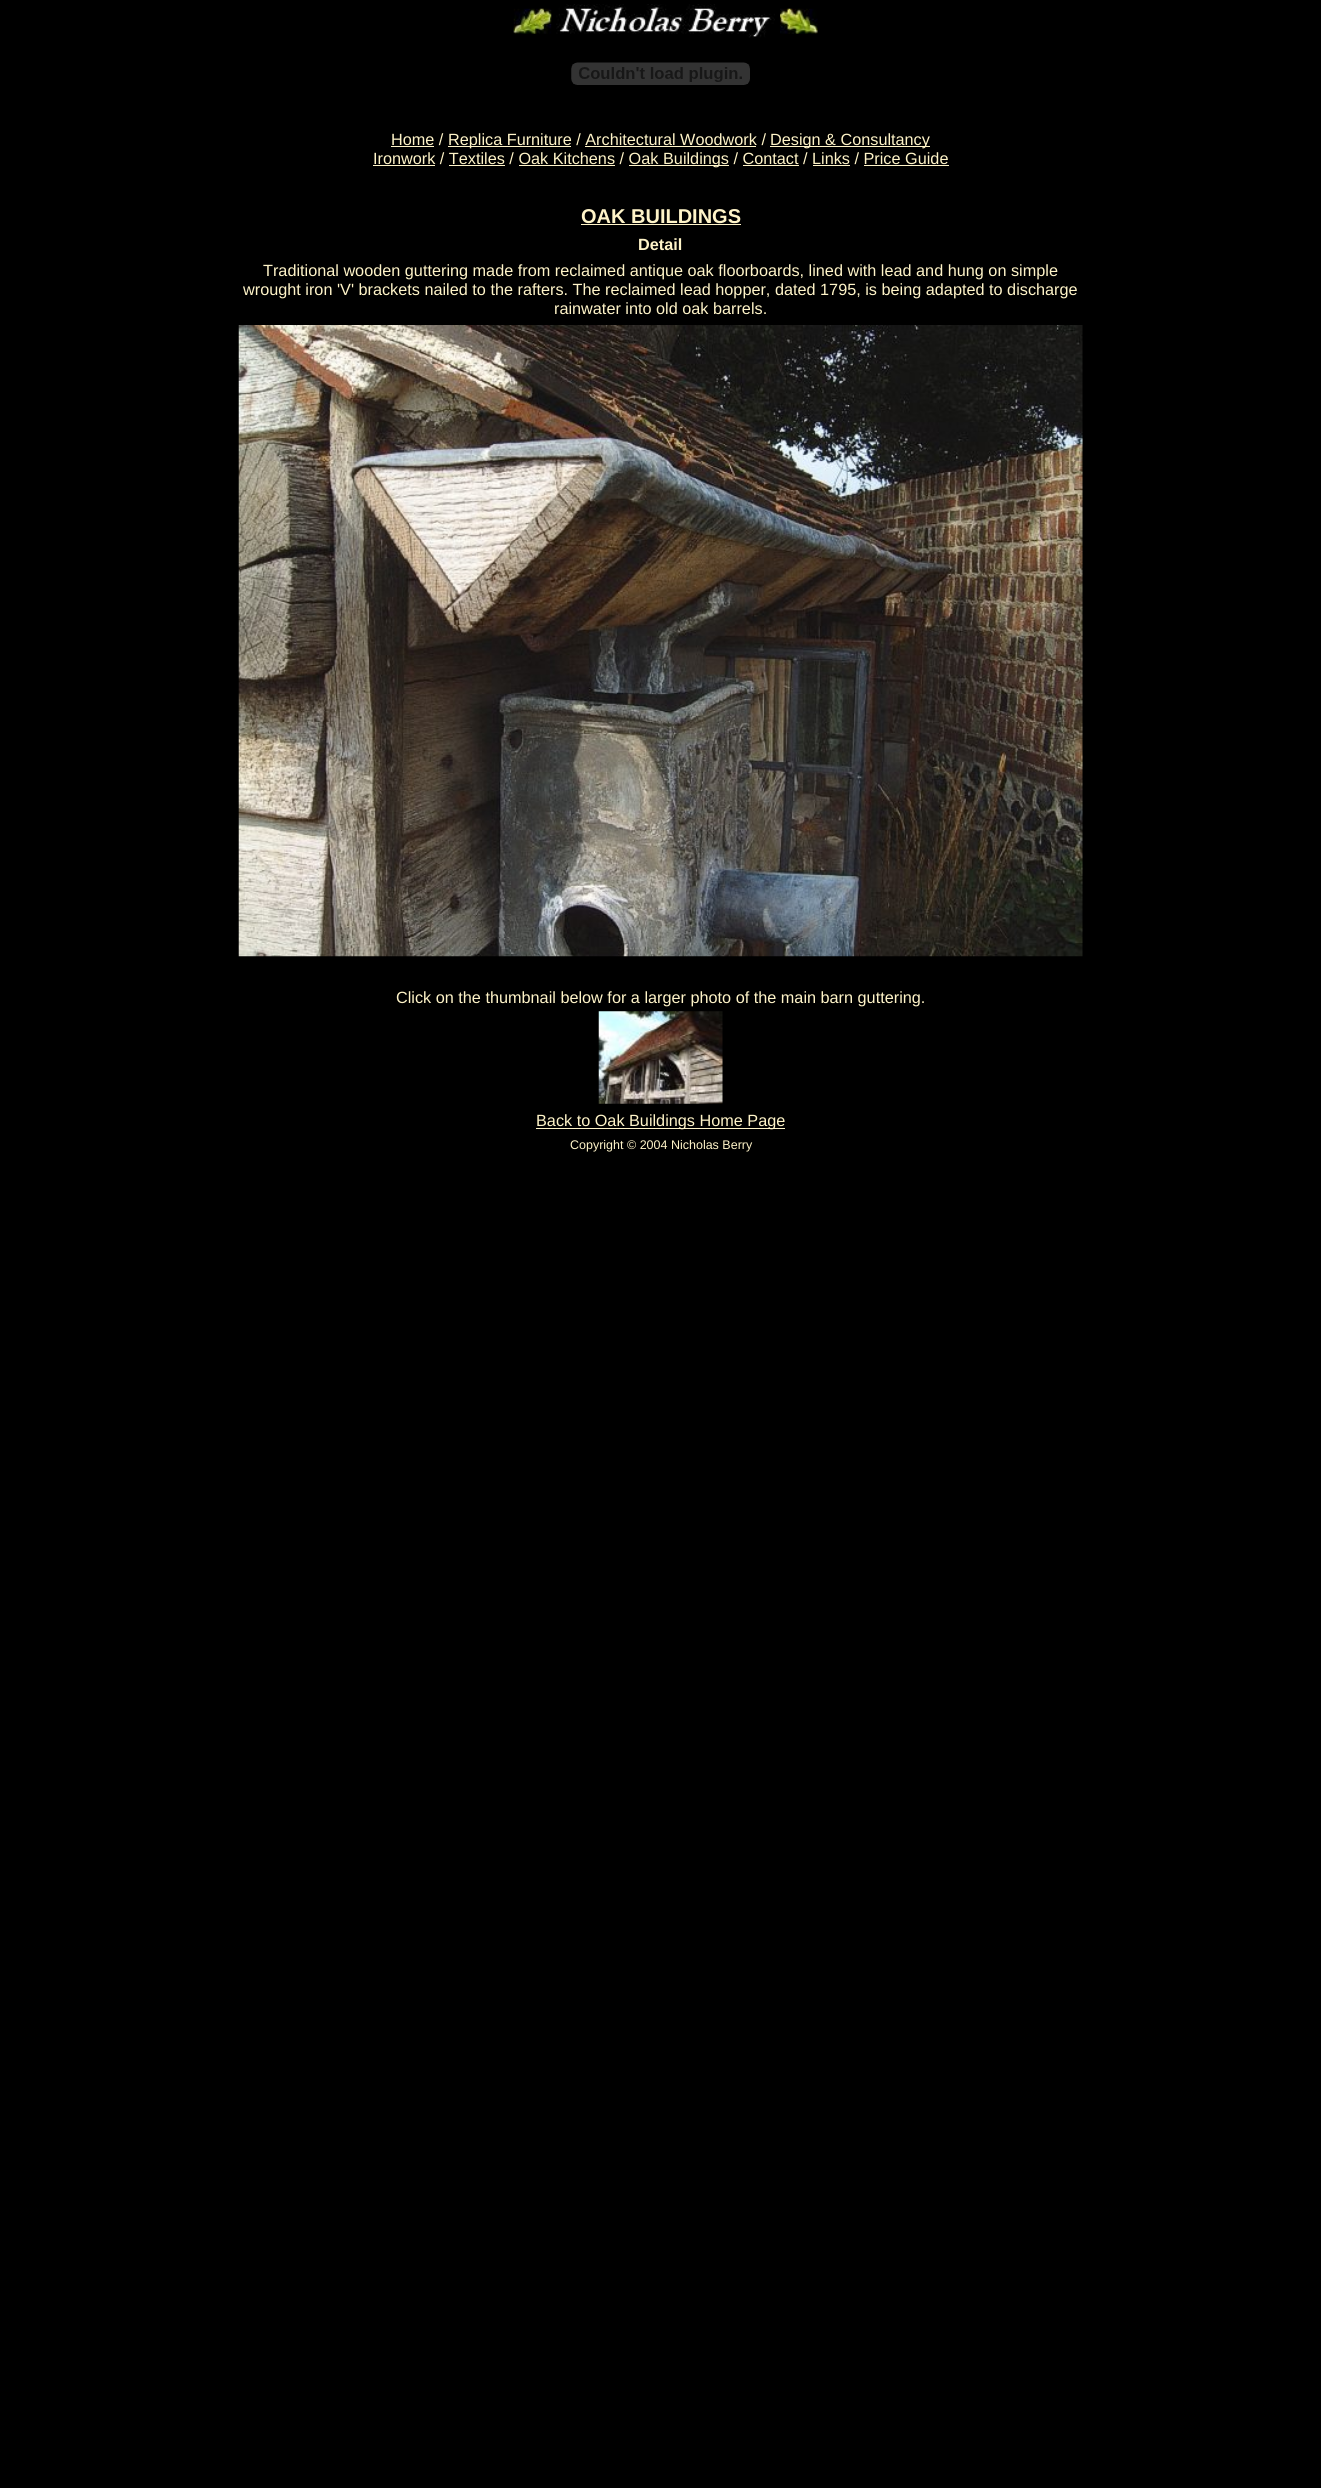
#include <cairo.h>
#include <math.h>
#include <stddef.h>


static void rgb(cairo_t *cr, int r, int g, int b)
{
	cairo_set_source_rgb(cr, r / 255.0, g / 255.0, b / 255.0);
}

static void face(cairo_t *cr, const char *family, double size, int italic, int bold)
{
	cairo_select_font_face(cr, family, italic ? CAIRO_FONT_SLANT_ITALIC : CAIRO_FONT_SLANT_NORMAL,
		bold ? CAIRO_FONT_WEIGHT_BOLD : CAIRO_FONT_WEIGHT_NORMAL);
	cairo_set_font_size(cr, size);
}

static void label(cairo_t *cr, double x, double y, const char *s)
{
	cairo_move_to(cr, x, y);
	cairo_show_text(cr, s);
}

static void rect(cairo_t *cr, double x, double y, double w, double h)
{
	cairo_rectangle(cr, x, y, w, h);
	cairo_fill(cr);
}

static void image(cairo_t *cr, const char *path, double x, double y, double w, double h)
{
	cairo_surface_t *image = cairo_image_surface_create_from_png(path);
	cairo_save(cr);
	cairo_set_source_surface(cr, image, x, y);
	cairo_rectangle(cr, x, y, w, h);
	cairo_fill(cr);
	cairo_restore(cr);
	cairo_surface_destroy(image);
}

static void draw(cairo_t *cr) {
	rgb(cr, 0, 0, 0);
	cairo_paint(cr);
	image(cr, "image0.png", 513, 8, 39, 26);
	image(cr, "image1.png", 556, 4, 219, 34);
	image(cr, "image2.png", 780, 8, 38, 26);
	image(cr, "image3.png", 571, 62, 179, 23);
	face(cr, "Liberation Sans", 16.25, 0, 0);
	rgb(cr, 255, 244, 200);
	label(cr, 391, 145, "Home /");
	rect(cr, 391, 146, 43, 1);
	rect(cr, 448, 146, 123, 1);
	label(cr, 448, 145, "Replica Furniture / Architectural Woodwork /");
	rect(cr, 585, 146, 171, 1);
	rect(cr, 770, 146, 160, 1);
	label(cr, 770, 145, "Design & Consultancy");
	label(cr, 373, 164, "Ironwork / Textiles / Oak Kitchens / Oak");
	rect(cr, 373, 165, 62, 1);
	rect(cr, 449, 165, 56, 1);
	rect(cr, 519, 165, 96, 1);
	rect(cr, 629, 165, 100, 1);
	label(cr, 663, 164, "Buildings / Contact / Links / Price Guide");
	rect(cr, 743, 165, 56, 1);
	rect(cr, 813, 165, 37, 1);
	rect(cr, 864, 165, 85, 1);
	face(cr, "Liberation Sans", 20, 0, 1);
	label(cr, 581, 223, "OAK BUILDINGS");
	rect(cr, 581, 224, 160, 1);
	face(cr, "Liberation Sans", 16.25, 0, 1);
	label(cr, 638, 250, "Detail");
	face(cr, "Liberation Sans", 16.25, 0, 0);
	label(cr, 263, 276, "Traditional wooden guttering made from reclaimed antique oak floorboards, lined with lead and hung on simple");
	label(cr, 243, 295, "wrought iron 'V' brackets nailed to the rafters. The reclaimed lead hopper, dated 1795, is being adapted to discharge");
	label(cr, 554, 314, "rainwater into old oak barrels.");
	image(cr, "image4.png", 238, 325, 845, 632);
	label(cr, 396, 1003, "Click on the thumbnail below for a larger photo of the main barn guttering.");
	image(cr, "image5.png", 598, 1011, 125, 93);
	rect(cr, 536, 1128, 249, 1);
	label(cr, 536, 1126, "Back to Oak Buildings Home Page");
	face(cr, "Liberation Sans", 12.5, 0, 0);
	label(cr, 570, 1149, "Copyright © 2004 Nicholas Berry");
}

int main(void) {
	cairo_surface_t *surface = cairo_image_surface_create(CAIRO_FORMAT_RGB24, 1321, 2488);
	cairo_t *cr = cairo_create(surface);
	cairo_font_options_t *options = cairo_font_options_create();
	cairo_font_options_set_hint_metrics(options, CAIRO_HINT_METRICS_OFF);
	cairo_font_options_set_hint_style(options, CAIRO_HINT_STYLE_NONE);
	cairo_set_font_options(cr, options);
	cairo_set_miter_limit(cr, 4);
	draw(cr);
	cairo_surface_write_to_png(surface, "render.png");
	cairo_font_options_destroy(options);
	cairo_destroy(cr);
	cairo_surface_destroy(surface);
	return 0;
}
